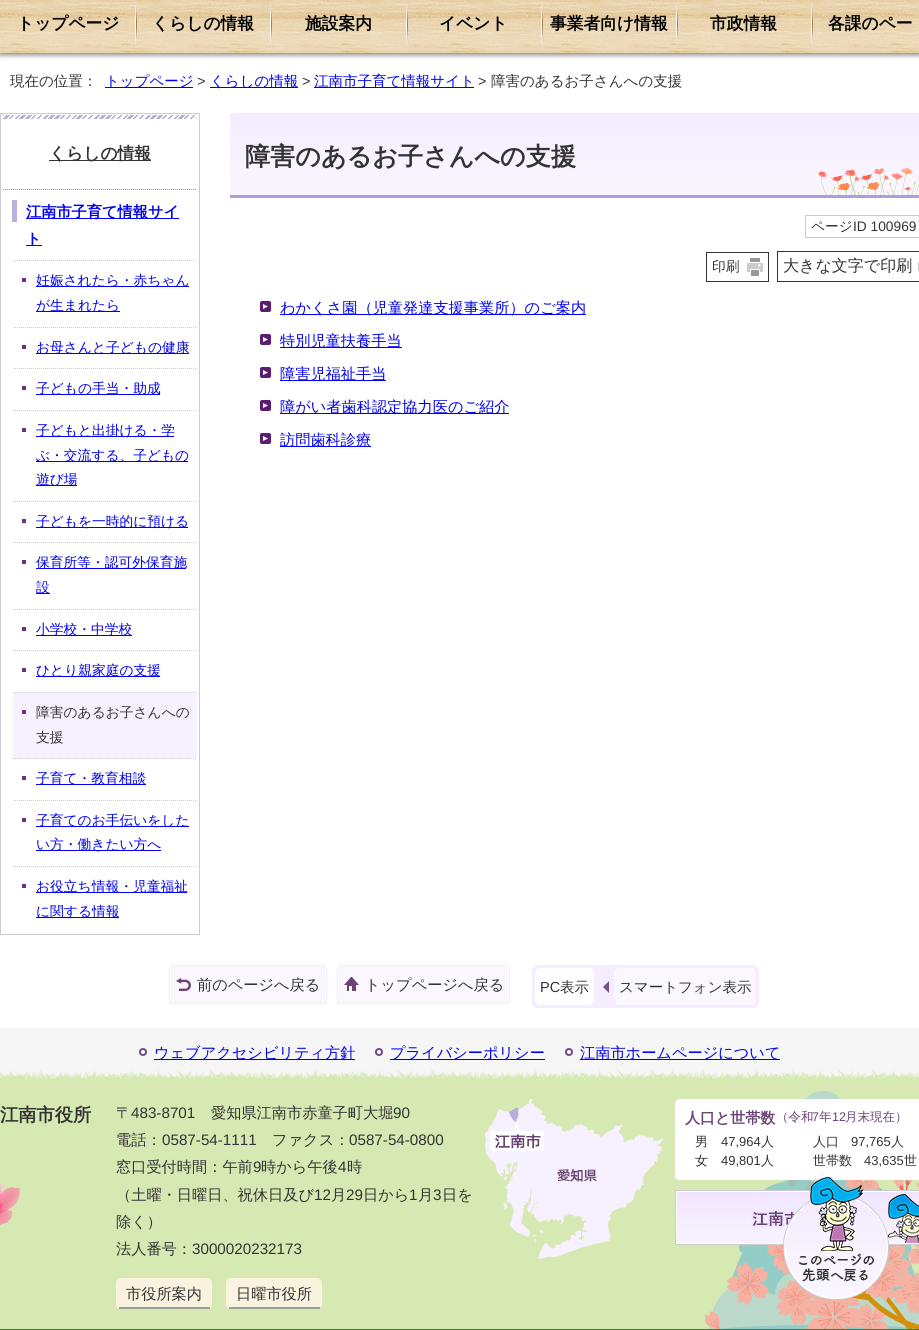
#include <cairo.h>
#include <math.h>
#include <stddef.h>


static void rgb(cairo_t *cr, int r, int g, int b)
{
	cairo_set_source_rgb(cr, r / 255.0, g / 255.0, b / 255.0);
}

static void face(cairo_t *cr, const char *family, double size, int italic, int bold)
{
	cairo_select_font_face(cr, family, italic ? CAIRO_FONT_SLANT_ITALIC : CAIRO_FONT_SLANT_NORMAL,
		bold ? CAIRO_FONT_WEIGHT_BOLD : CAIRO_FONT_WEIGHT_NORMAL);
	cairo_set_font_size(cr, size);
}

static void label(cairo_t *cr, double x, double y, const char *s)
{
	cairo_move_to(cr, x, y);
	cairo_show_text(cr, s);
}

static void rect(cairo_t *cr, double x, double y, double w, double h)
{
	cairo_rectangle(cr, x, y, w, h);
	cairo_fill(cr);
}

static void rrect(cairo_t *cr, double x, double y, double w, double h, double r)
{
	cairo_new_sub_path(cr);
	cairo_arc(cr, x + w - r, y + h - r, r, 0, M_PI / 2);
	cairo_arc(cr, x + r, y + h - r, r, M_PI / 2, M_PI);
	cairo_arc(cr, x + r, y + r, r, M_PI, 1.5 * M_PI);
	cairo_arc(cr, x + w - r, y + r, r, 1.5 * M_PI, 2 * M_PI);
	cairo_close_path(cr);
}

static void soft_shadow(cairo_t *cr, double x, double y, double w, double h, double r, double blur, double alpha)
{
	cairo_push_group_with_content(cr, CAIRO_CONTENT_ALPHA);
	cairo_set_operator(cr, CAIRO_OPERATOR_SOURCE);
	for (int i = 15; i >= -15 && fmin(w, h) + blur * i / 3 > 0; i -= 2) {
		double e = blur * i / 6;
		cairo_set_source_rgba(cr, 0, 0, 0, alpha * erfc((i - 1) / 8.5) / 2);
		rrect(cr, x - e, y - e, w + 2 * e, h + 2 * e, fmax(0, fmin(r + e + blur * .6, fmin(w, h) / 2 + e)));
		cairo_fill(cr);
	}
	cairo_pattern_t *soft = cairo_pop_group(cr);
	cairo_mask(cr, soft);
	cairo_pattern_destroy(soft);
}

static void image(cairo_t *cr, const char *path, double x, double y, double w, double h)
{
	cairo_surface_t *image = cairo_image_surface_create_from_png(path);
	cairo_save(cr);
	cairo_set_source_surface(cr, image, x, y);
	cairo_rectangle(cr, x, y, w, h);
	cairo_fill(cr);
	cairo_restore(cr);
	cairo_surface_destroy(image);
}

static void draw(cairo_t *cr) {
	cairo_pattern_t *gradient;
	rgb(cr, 255, 255, 255);
	cairo_paint(cr);
	image(cr, "image0.png", 0, 0, 919, 53);
	cairo_save(cr);
	cairo_rectangle(cr, 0, 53, 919, 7);
	cairo_clip(cr);
	rgb(cr, 100, 100, 100);
	soft_shadow(cr, 0, -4, 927, 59, 0, 2.5, 0.8);
	cairo_restore(cr);
	face(cr, "WenQuanYi Zen Hei", 16.75, 0, 1);
	rgb(cr, 0, 0, 0);
	label(cr, 17, 29, "トップページ");
	image(cr, "image1.png", 135, 1, 2, 45);
	label(cr, 152, 29, "くらしの情報");
	image(cr, "image2.png", 270, 1, 2, 46);
	label(cr, 305, 29, "施設案内");
	image(cr, "image3.png", 406, 1, 2, 45);
	label(cr, 439, 29, "イベント");
	image(cr, "image4.png", 541, 1, 2, 46);
	label(cr, 550, 29, "事業者向け情報");
	image(cr, "image5.png", 676, 1, 2, 46);
	label(cr, 710, 29, "市政情報");
	image(cr, "image6.png", 811, 1, 2, 46);
	label(cr, 828, 29, "各課のペー");
	face(cr, "WenQuanYi Zen Hei Medium", 14.5, 0, 0);
	rgb(cr, 51, 51, 51);
	label(cr, 10, 86, "現在の位置：");
	rgb(cr, 0, 0, 238);
	rect(cr, 105, 87, 88, 1);
	label(cr, 105, 86, "トップページ");
	face(cr, "Liberation Sans", 14.5, 0, 0);
	rgb(cr, 51, 51, 51);
	label(cr, 197, 86, ">");
	rgb(cr, 0, 0, 238);
	rect(cr, 210, 87, 88, 1);
	face(cr, "WenQuanYi Zen Hei Medium", 14.5, 0, 0);
	label(cr, 210, 86, "くらしの情報");
	face(cr, "Liberation Sans", 14.5, 0, 0);
	rgb(cr, 51, 51, 51);
	label(cr, 302, 86, ">");
	rgb(cr, 0, 0, 238);
	rect(cr, 314, 87, 160, 1);
	face(cr, "WenQuanYi Zen Hei Medium", 14.5, 0, 0);
	label(cr, 314, 86, "江南市子育て情報サイト");
	face(cr, "Liberation Sans", 14.5, 0, 0);
	rgb(cr, 51, 51, 51);
	label(cr, 478, 86, ">");
	face(cr, "WenQuanYi Zen Hei Medium", 14.5, 0, 0);
	label(cr, 491, 86, "障害のあるお子さんへの支援");
	cairo_rectangle(cr, 0.5, 113.5, 199, 821);
	rgb(cr, 204, 204, 204);
	cairo_set_line_width(cr, 1);
	cairo_stroke(cr);
	gradient = cairo_pattern_create_linear(150, 167, 48, 65);
	cairo_pattern_add_color_stop_rgba(gradient, 0, 0.722, 0.678, 0.859, 1);
	cairo_pattern_add_color_stop_rgba(gradient, 0.01, 0.722, 0.678, 0.859, 1);
	cairo_pattern_add_color_stop_rgba(gradient, 0.01, 1, 1, 1, 1);
	cairo_pattern_add_color_stop_rgba(gradient, 0.03, 1, 1, 1, 1);
	cairo_pattern_add_color_stop_rgba(gradient, 0.03, 0.722, 0.678, 0.859, 1);
	cairo_pattern_add_color_stop_rgba(gradient, 0.04, 0.722, 0.678, 0.859, 1);
	cairo_pattern_add_color_stop_rgba(gradient, 0.04, 1, 1, 1, 1);
	cairo_pattern_add_color_stop_rgba(gradient, 0.06, 1, 1, 1, 1);
	cairo_pattern_add_color_stop_rgba(gradient, 0.06, 0.722, 0.678, 0.859, 1);
	cairo_pattern_add_color_stop_rgba(gradient, 0.07, 0.722, 0.678, 0.859, 1);
	cairo_pattern_add_color_stop_rgba(gradient, 0.07, 1, 1, 1, 1);
	cairo_pattern_add_color_stop_rgba(gradient, 0.08, 1, 1, 1, 1);
	cairo_pattern_add_color_stop_rgba(gradient, 0.08, 0.722, 0.678, 0.859, 1);
	cairo_pattern_add_color_stop_rgba(gradient, 0.1, 0.722, 0.678, 0.859, 1);
	cairo_pattern_add_color_stop_rgba(gradient, 0.1, 1, 1, 1, 1);
	cairo_pattern_add_color_stop_rgba(gradient, 0.11, 1, 1, 1, 1);
	cairo_pattern_add_color_stop_rgba(gradient, 0.11, 0.722, 0.678, 0.859, 1);
	cairo_pattern_add_color_stop_rgba(gradient, 0.12, 0.722, 0.678, 0.859, 1);
	cairo_pattern_add_color_stop_rgba(gradient, 0.12, 1, 1, 1, 1);
	cairo_pattern_add_color_stop_rgba(gradient, 0.14, 1, 1, 1, 1);
	cairo_pattern_add_color_stop_rgba(gradient, 0.14, 0.722, 0.678, 0.859, 1);
	cairo_pattern_add_color_stop_rgba(gradient, 0.15, 0.722, 0.678, 0.859, 1);
	cairo_pattern_add_color_stop_rgba(gradient, 0.15, 1, 1, 1, 1);
	cairo_pattern_add_color_stop_rgba(gradient, 0.17, 1, 1, 1, 1);
	cairo_pattern_add_color_stop_rgba(gradient, 0.17, 0.722, 0.678, 0.859, 1);
	cairo_pattern_add_color_stop_rgba(gradient, 0.18, 0.722, 0.678, 0.859, 1);
	cairo_pattern_add_color_stop_rgba(gradient, 0.18, 1, 1, 1, 1);
	cairo_pattern_add_color_stop_rgba(gradient, 0.19, 1, 1, 1, 1);
	cairo_pattern_add_color_stop_rgba(gradient, 0.19, 0.722, 0.678, 0.859, 1);
	cairo_pattern_add_color_stop_rgba(gradient, 0.21, 0.722, 0.678, 0.859, 1);
	cairo_pattern_add_color_stop_rgba(gradient, 0.21, 1, 1, 1, 1);
	cairo_pattern_add_color_stop_rgba(gradient, 0.22, 1, 1, 1, 1);
	cairo_pattern_add_color_stop_rgba(gradient, 0.22, 0.722, 0.678, 0.859, 1);
	cairo_pattern_add_color_stop_rgba(gradient, 0.24, 0.722, 0.678, 0.859, 1);
	cairo_pattern_add_color_stop_rgba(gradient, 0.24, 1, 1, 1, 1);
	cairo_pattern_add_color_stop_rgba(gradient, 0.25, 1, 1, 1, 1);
	cairo_pattern_add_color_stop_rgba(gradient, 0.25, 0.722, 0.678, 0.859, 1);
	cairo_pattern_add_color_stop_rgba(gradient, 0.26, 0.722, 0.678, 0.859, 1);
	cairo_pattern_add_color_stop_rgba(gradient, 0.26, 1, 1, 1, 1);
	cairo_pattern_add_color_stop_rgba(gradient, 0.28, 1, 1, 1, 1);
	cairo_pattern_add_color_stop_rgba(gradient, 0.28, 0.722, 0.678, 0.859, 1);
	cairo_pattern_add_color_stop_rgba(gradient, 0.29, 0.722, 0.678, 0.859, 1);
	cairo_pattern_add_color_stop_rgba(gradient, 0.29, 1, 1, 1, 1);
	cairo_pattern_add_color_stop_rgba(gradient, 0.31, 1, 1, 1, 1);
	cairo_pattern_add_color_stop_rgba(gradient, 0.31, 0.722, 0.678, 0.859, 1);
	cairo_pattern_add_color_stop_rgba(gradient, 0.32, 0.722, 0.678, 0.859, 1);
	cairo_pattern_add_color_stop_rgba(gradient, 0.32, 1, 1, 1, 1);
	cairo_pattern_add_color_stop_rgba(gradient, 0.33, 1, 1, 1, 1);
	cairo_pattern_add_color_stop_rgba(gradient, 0.33, 0.722, 0.678, 0.859, 1);
	cairo_pattern_add_color_stop_rgba(gradient, 0.35, 0.722, 0.678, 0.859, 1);
	cairo_pattern_add_color_stop_rgba(gradient, 0.35, 1, 1, 1, 1);
	cairo_pattern_add_color_stop_rgba(gradient, 0.36, 1, 1, 1, 1);
	cairo_pattern_add_color_stop_rgba(gradient, 0.36, 0.722, 0.678, 0.859, 1);
	cairo_pattern_add_color_stop_rgba(gradient, 0.37, 0.722, 0.678, 0.859, 1);
	cairo_pattern_add_color_stop_rgba(gradient, 0.37, 1, 1, 1, 1);
	cairo_pattern_add_color_stop_rgba(gradient, 0.39, 1, 1, 1, 1);
	cairo_pattern_add_color_stop_rgba(gradient, 0.39, 0.722, 0.678, 0.859, 1);
	cairo_pattern_add_color_stop_rgba(gradient, 0.4, 0.722, 0.678, 0.859, 1);
	cairo_pattern_add_color_stop_rgba(gradient, 0.4, 1, 1, 1, 1);
	cairo_pattern_add_color_stop_rgba(gradient, 0.42, 1, 1, 1, 1);
	cairo_pattern_add_color_stop_rgba(gradient, 0.42, 0.722, 0.678, 0.859, 1);
	cairo_pattern_add_color_stop_rgba(gradient, 0.43, 0.722, 0.678, 0.859, 1);
	cairo_pattern_add_color_stop_rgba(gradient, 0.43, 1, 1, 1, 1);
	cairo_pattern_add_color_stop_rgba(gradient, 0.44, 1, 1, 1, 1);
	cairo_pattern_add_color_stop_rgba(gradient, 0.44, 0.722, 0.678, 0.859, 1);
	cairo_pattern_add_color_stop_rgba(gradient, 0.46, 0.722, 0.678, 0.859, 1);
	cairo_pattern_add_color_stop_rgba(gradient, 0.46, 1, 1, 1, 1);
	cairo_pattern_add_color_stop_rgba(gradient, 0.47, 1, 1, 1, 1);
	cairo_pattern_add_color_stop_rgba(gradient, 0.47, 0.722, 0.678, 0.859, 1);
	cairo_pattern_add_color_stop_rgba(gradient, 0.49, 0.722, 0.678, 0.859, 1);
	cairo_pattern_add_color_stop_rgba(gradient, 0.49, 1, 1, 1, 1);
	cairo_pattern_add_color_stop_rgba(gradient, 0.5, 1, 1, 1, 1);
	cairo_pattern_add_color_stop_rgba(gradient, 0.5, 0.722, 0.678, 0.859, 1);
	cairo_pattern_add_color_stop_rgba(gradient, 0.51, 0.722, 0.678, 0.859, 1);
	cairo_pattern_add_color_stop_rgba(gradient, 0.51, 1, 1, 1, 1);
	cairo_pattern_add_color_stop_rgba(gradient, 0.53, 1, 1, 1, 1);
	cairo_pattern_add_color_stop_rgba(gradient, 0.53, 0.722, 0.678, 0.859, 1);
	cairo_pattern_add_color_stop_rgba(gradient, 0.54, 0.722, 0.678, 0.859, 1);
	cairo_pattern_add_color_stop_rgba(gradient, 0.54, 1, 1, 1, 1);
	cairo_pattern_add_color_stop_rgba(gradient, 0.56, 1, 1, 1, 1);
	cairo_pattern_add_color_stop_rgba(gradient, 0.56, 0.722, 0.678, 0.859, 1);
	cairo_pattern_add_color_stop_rgba(gradient, 0.57, 0.722, 0.678, 0.859, 1);
	cairo_pattern_add_color_stop_rgba(gradient, 0.57, 1, 1, 1, 1);
	cairo_pattern_add_color_stop_rgba(gradient, 0.58, 1, 1, 1, 1);
	cairo_pattern_add_color_stop_rgba(gradient, 0.58, 0.722, 0.678, 0.859, 1);
	cairo_pattern_add_color_stop_rgba(gradient, 0.6, 0.722, 0.678, 0.859, 1);
	cairo_pattern_add_color_stop_rgba(gradient, 0.6, 1, 1, 1, 1);
	cairo_pattern_add_color_stop_rgba(gradient, 0.61, 1, 1, 1, 1);
	cairo_pattern_add_color_stop_rgba(gradient, 0.61, 0.722, 0.678, 0.859, 1);
	cairo_pattern_add_color_stop_rgba(gradient, 0.62, 0.722, 0.678, 0.859, 1);
	cairo_pattern_add_color_stop_rgba(gradient, 0.62, 1, 1, 1, 1);
	cairo_pattern_add_color_stop_rgba(gradient, 0.64, 1, 1, 1, 1);
	cairo_pattern_add_color_stop_rgba(gradient, 0.64, 0.722, 0.678, 0.859, 1);
	cairo_pattern_add_color_stop_rgba(gradient, 0.65, 0.722, 0.678, 0.859, 1);
	cairo_pattern_add_color_stop_rgba(gradient, 0.65, 1, 1, 1, 1);
	cairo_pattern_add_color_stop_rgba(gradient, 0.67, 1, 1, 1, 1);
	cairo_pattern_add_color_stop_rgba(gradient, 0.67, 0.722, 0.678, 0.859, 1);
	cairo_pattern_add_color_stop_rgba(gradient, 0.68, 0.722, 0.678, 0.859, 1);
	cairo_pattern_add_color_stop_rgba(gradient, 0.68, 1, 1, 1, 1);
	cairo_pattern_add_color_stop_rgba(gradient, 0.69, 1, 1, 1, 1);
	cairo_pattern_add_color_stop_rgba(gradient, 0.69, 0.722, 0.678, 0.859, 1);
	cairo_pattern_add_color_stop_rgba(gradient, 0.71, 0.722, 0.678, 0.859, 1);
	cairo_pattern_add_color_stop_rgba(gradient, 0.71, 1, 1, 1, 1);
	cairo_pattern_add_color_stop_rgba(gradient, 0.72, 1, 1, 1, 1);
	cairo_pattern_add_color_stop_rgba(gradient, 0.72, 0.722, 0.678, 0.859, 1);
	cairo_pattern_add_color_stop_rgba(gradient, 0.74, 0.722, 0.678, 0.859, 1);
	cairo_pattern_add_color_stop_rgba(gradient, 0.74, 1, 1, 1, 1);
	cairo_pattern_add_color_stop_rgba(gradient, 0.75, 1, 1, 1, 1);
	cairo_pattern_add_color_stop_rgba(gradient, 0.75, 0.722, 0.678, 0.859, 1);
	cairo_pattern_add_color_stop_rgba(gradient, 0.76, 0.722, 0.678, 0.859, 1);
	cairo_pattern_add_color_stop_rgba(gradient, 0.76, 1, 1, 1, 1);
	cairo_pattern_add_color_stop_rgba(gradient, 0.78, 1, 1, 1, 1);
	cairo_pattern_add_color_stop_rgba(gradient, 0.78, 0.722, 0.678, 0.859, 1);
	cairo_pattern_add_color_stop_rgba(gradient, 0.79, 0.722, 0.678, 0.859, 1);
	cairo_pattern_add_color_stop_rgba(gradient, 0.79, 1, 1, 1, 1);
	cairo_pattern_add_color_stop_rgba(gradient, 0.81, 1, 1, 1, 1);
	cairo_pattern_add_color_stop_rgba(gradient, 0.81, 0.722, 0.678, 0.859, 1);
	cairo_pattern_add_color_stop_rgba(gradient, 0.82, 0.722, 0.678, 0.859, 1);
	cairo_pattern_add_color_stop_rgba(gradient, 0.82, 1, 1, 1, 1);
	cairo_pattern_add_color_stop_rgba(gradient, 0.83, 1, 1, 1, 1);
	cairo_pattern_add_color_stop_rgba(gradient, 0.83, 0.722, 0.678, 0.859, 1);
	cairo_pattern_add_color_stop_rgba(gradient, 0.85, 0.722, 0.678, 0.859, 1);
	cairo_pattern_add_color_stop_rgba(gradient, 0.85, 1, 1, 1, 1);
	cairo_pattern_add_color_stop_rgba(gradient, 0.86, 1, 1, 1, 1);
	cairo_pattern_add_color_stop_rgba(gradient, 0.86, 0.722, 0.678, 0.859, 1);
	cairo_pattern_add_color_stop_rgba(gradient, 0.88, 0.722, 0.678, 0.859, 1);
	cairo_pattern_add_color_stop_rgba(gradient, 0.88, 1, 1, 1, 1);
	cairo_pattern_add_color_stop_rgba(gradient, 0.89, 1, 1, 1, 1);
	cairo_pattern_add_color_stop_rgba(gradient, 0.89, 0.722, 0.678, 0.859, 1);
	cairo_pattern_add_color_stop_rgba(gradient, 0.9, 0.722, 0.678, 0.859, 1);
	cairo_pattern_add_color_stop_rgba(gradient, 0.9, 1, 1, 1, 1);
	cairo_pattern_add_color_stop_rgba(gradient, 0.92, 1, 1, 1, 1);
	cairo_pattern_add_color_stop_rgba(gradient, 0.92, 0.722, 0.678, 0.859, 1);
	cairo_pattern_add_color_stop_rgba(gradient, 0.93, 0.722, 0.678, 0.859, 1);
	cairo_pattern_add_color_stop_rgba(gradient, 0.93, 1, 1, 1, 1);
	cairo_pattern_add_color_stop_rgba(gradient, 0.94, 1, 1, 1, 1);
	cairo_pattern_add_color_stop_rgba(gradient, 0.94, 0.722, 0.678, 0.859, 1);
	cairo_pattern_add_color_stop_rgba(gradient, 0.96, 0.722, 0.678, 0.859, 1);
	cairo_pattern_add_color_stop_rgba(gradient, 0.96, 1, 1, 1, 1);
	cairo_pattern_add_color_stop_rgba(gradient, 0.97, 1, 1, 1, 1);
	cairo_pattern_add_color_stop_rgba(gradient, 0.97, 0.722, 0.678, 0.859, 1);
	cairo_pattern_add_color_stop_rgba(gradient, 0.99, 0.722, 0.678, 0.859, 1);
	cairo_pattern_add_color_stop_rgba(gradient, 0.99, 1, 1, 1, 1);
	cairo_pattern_add_color_stop_rgba(gradient, 1, 1, 1, 1, 1);
	cairo_set_source(cr, gradient);
	cairo_pattern_destroy(gradient);
	rect(cr, 3, 115, 194, 4);
	rgb(cr, 51, 51, 51);
	rect(cr, 49, 160, 102, 1);
	face(cr, "WenQuanYi Zen Hei", 16.75, 0, 1);
	label(cr, 49, 159, "くらしの情報");
	rgb(cr, 187, 177, 221);
	rect(cr, 12, 200, 5, 22);
	cairo_new_path(cr);
	cairo_move_to(cr, 3, 189.5);
	cairo_line_to(cr, 197, 189.5);
	rgb(cr, 153, 153, 153);
	cairo_set_dash(cr, (double[]){1, 1}, 2, 0);
	cairo_stroke(cr);
	rgb(cr, 0, 0, 238);
	rect(cr, 26, 218, 153, 1);
	face(cr, "WenQuanYi Zen Hei", 15.2, 0, 1);
	label(cr, 26, 217, "江南市子育て情報サイ");
	rect(cr, 26, 245, 16, 1);
	label(cr, 26, 244, "ト");
	rgb(cr, 108, 50, 125);
	rect(cr, 22, 278, 4, 4);
	cairo_new_path(cr);
	cairo_move_to(cr, 13, 260.5);
	cairo_line_to(cr, 197, 260.5);
	rgb(cr, 204, 204, 204);
	cairo_stroke(cr);
	rgb(cr, 0, 0, 238);
	rect(cr, 36, 286, 153, 1);
	face(cr, "WenQuanYi Zen Hei Medium", 13.75, 0, 0);
	label(cr, 36, 285, "妊娠されたら・赤ちゃん");
	rect(cr, 36, 311, 84, 1);
	label(cr, 36, 310, "が生まれたら");
	rgb(cr, 108, 50, 125);
	rect(cr, 22, 345, 4, 4);
	cairo_new_path(cr);
	cairo_move_to(cr, 13, 327.5);
	cairo_line_to(cr, 197, 327.5);
	rgb(cr, 204, 204, 204);
	cairo_stroke(cr);
	rgb(cr, 0, 0, 238);
	rect(cr, 36, 353, 153, 1);
	label(cr, 36, 352, "お母さんと子どもの健康");
	rgb(cr, 108, 50, 125);
	rect(cr, 22, 386, 4, 4);
	cairo_new_path(cr);
	cairo_move_to(cr, 13, 368.5);
	cairo_line_to(cr, 197, 368.5);
	rgb(cr, 204, 204, 204);
	cairo_stroke(cr);
	rgb(cr, 0, 0, 238);
	rect(cr, 36, 394, 124, 1);
	label(cr, 36, 393, "子どもの手当・助成");
	rgb(cr, 108, 50, 125);
	rect(cr, 22, 428, 4, 4);
	cairo_new_path(cr);
	cairo_move_to(cr, 13, 410.5);
	cairo_line_to(cr, 197, 410.5);
	rgb(cr, 204, 204, 204);
	cairo_stroke(cr);
	rgb(cr, 0, 0, 238);
	rect(cr, 36, 436, 138, 1);
	label(cr, 36, 435, "子どもと出掛ける・学");
	rect(cr, 36, 461, 152, 1);
	label(cr, 36, 460, "ぶ・交流する、子どもの");
	rect(cr, 36, 485, 41, 1);
	label(cr, 36, 484, "遊び場");
	rgb(cr, 108, 50, 125);
	rect(cr, 22, 519, 4, 4);
	cairo_new_path(cr);
	cairo_move_to(cr, 13, 501.5);
	cairo_line_to(cr, 197, 501.5);
	rgb(cr, 204, 204, 204);
	cairo_stroke(cr);
	rgb(cr, 0, 0, 238);
	rect(cr, 36, 527, 152, 1);
	label(cr, 36, 526, "子どもを一時的に預ける");
	rgb(cr, 108, 50, 125);
	rect(cr, 22, 560, 4, 4);
	cairo_new_path(cr);
	cairo_move_to(cr, 13, 542.5);
	cairo_line_to(cr, 197, 542.5);
	rgb(cr, 204, 204, 204);
	cairo_stroke(cr);
	rgb(cr, 0, 0, 238);
	rect(cr, 36, 568, 150, 1);
	label(cr, 36, 567, "保育所等・認可外保育施");
	rect(cr, 36, 593, 14, 1);
	label(cr, 36, 592, "設");
	rgb(cr, 108, 50, 125);
	rect(cr, 22, 627, 4, 4);
	cairo_new_path(cr);
	cairo_move_to(cr, 13, 609.5);
	cairo_line_to(cr, 197, 609.5);
	rgb(cr, 204, 204, 204);
	cairo_stroke(cr);
	rgb(cr, 0, 0, 238);
	rect(cr, 36, 635, 96, 1);
	label(cr, 36, 634, "小学校・中学校");
	rgb(cr, 108, 50, 125);
	rect(cr, 22, 668, 4, 4);
	cairo_new_path(cr);
	cairo_move_to(cr, 13, 650.5);
	cairo_line_to(cr, 197, 650.5);
	rgb(cr, 204, 204, 204);
	cairo_stroke(cr);
	rgb(cr, 0, 0, 238);
	rect(cr, 36, 676, 124, 1);
	label(cr, 36, 675, "ひとり親家庭の支援");
	rgb(cr, 247, 241, 255);
	rect(cr, 13, 692, 184, 66);
	rgb(cr, 108, 50, 125);
	rect(cr, 22, 710, 4, 4);
	cairo_new_path(cr);
	cairo_move_to(cr, 13, 692.5);
	cairo_line_to(cr, 197, 692.5);
	rgb(cr, 204, 204, 204);
	cairo_stroke(cr);
	rgb(cr, 51, 51, 51);
	label(cr, 36, 717, "障害のあるお子さんへの");
	label(cr, 36, 742, "支援");
	rgb(cr, 108, 50, 125);
	rect(cr, 22, 776, 4, 4);
	cairo_new_path(cr);
	cairo_move_to(cr, 13, 758.5);
	cairo_line_to(cr, 197, 758.5);
	rgb(cr, 204, 204, 204);
	cairo_stroke(cr);
	rgb(cr, 0, 0, 238);
	rect(cr, 36, 784, 110, 1);
	label(cr, 36, 783, "子育て・教育相談");
	rgb(cr, 108, 50, 125);
	rect(cr, 22, 818, 4, 4);
	cairo_new_path(cr);
	cairo_move_to(cr, 13, 800.5);
	cairo_line_to(cr, 197, 800.5);
	rgb(cr, 204, 204, 204);
	cairo_stroke(cr);
	rgb(cr, 0, 0, 238);
	rect(cr, 36, 826, 153, 1);
	label(cr, 36, 825, "子育てのお手伝いをした");
	rect(cr, 36, 850, 125, 1);
	label(cr, 36, 849, "い方・働きたい方へ");
	rgb(cr, 108, 50, 125);
	rect(cr, 22, 884, 4, 4);
	cairo_new_path(cr);
	cairo_move_to(cr, 13, 866.5);
	cairo_line_to(cr, 197, 866.5);
	rgb(cr, 204, 204, 204);
	cairo_stroke(cr);
	rgb(cr, 0, 0, 238);
	rect(cr, 36, 892, 151, 1);
	label(cr, 36, 891, "お役立ち情報・児童福祉");
	rect(cr, 36, 917, 83, 1);
	label(cr, 36, 916, "に関する情報");
	image(cr, "image7.png", 230, 113, 689, 82);
	rgb(cr, 174, 158, 224);
	rect(cr, 230, 195, 689, 3);
	face(cr, "WenQuanYi Zen Hei", 25.1, 0, 1);
	rgb(cr, 51, 51, 51);
	label(cr, 245, 165, "障害のあるお子さんへの支援");
	cairo_rectangle(cr, 805.5, 215.5, 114, 22);
	rgb(cr, 204, 204, 204);
	cairo_set_dash(cr, NULL, 0, 0);
	cairo_stroke(cr);
	face(cr, "WenQuanYi Zen Hei Medium", 13.75, 0, 0);
	rgb(cr, 51, 51, 51);
	label(cr, 811, 231, "ページ");
	face(cr, "Liberation Sans", 13.75, 0, 0);
	label(cr, 853, 231, "ID 100969");
	cairo_rectangle(cr, 706.5, 252.5, 62, 29);
	cairo_stroke(cr);
	image(cr, "image8.png", 747, 258, 16, 18);
	face(cr, "WenQuanYi Zen Hei Medium", 13.75, 0, 0);
	label(cr, 712, 271, "印刷");
	cairo_rectangle(cr, 777.5, 251.5, 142, 30);
	cairo_stroke(cr);
	rgb(cr, 204, 204, 204);
	rect(cr, 918, 262, 1, 9);
	face(cr, "WenQuanYi Zen Hei Medium", 16, 0, 0);
	rgb(cr, 51, 51, 51);
	label(cr, 783, 271, "大きな文字で印刷");
	image(cr, "image9.png", 260, 301, 11, 11);
	rgb(cr, 0, 0, 238);
	rect(cr, 280, 314, 306, 1);
	face(cr, "WenQuanYi Zen Hei Medium", 15.2, 0, 0);
	label(cr, 280, 313, "わかくさ園（児童発達支援事業所）のご案内");
	image(cr, "image9.png", 260, 334, 11, 11);
	rect(cr, 280, 347, 122, 1);
	label(cr, 280, 346, "特別児童扶養手当");
	image(cr, "image9.png", 260, 367, 11, 11);
	rect(cr, 280, 380, 106, 1);
	label(cr, 280, 379, "障害児福祉手当");
	image(cr, "image9.png", 260, 400, 11, 11);
	rect(cr, 280, 413, 229, 1);
	label(cr, 280, 412, "障がい者歯科認定協力医のご紹介");
	image(cr, "image9.png", 260, 433, 11, 11);
	rect(cr, 280, 446, 91, 1);
	label(cr, 280, 445, "訪問歯科診療");
	rgb(cr, 251, 247, 255);
	rrect(cr, 169, 965, 158, 39, 3);
	cairo_fill(cr);
	image(cr, "image10.png", 176, 978, 15, 13);
	rrect(cr, 169.5, 965.5, 157, 38, 2.5);
	rgb(cr, 245, 236, 255);
	cairo_stroke(cr);
	rgb(cr, 51, 51, 51);
	label(cr, 197, 990, "前のページへ戻る");
	rgb(cr, 251, 247, 255);
	rrect(cr, 337, 965, 173, 39, 3);
	cairo_fill(cr);
	image(cr, "image11.png", 344, 977, 15, 14);
	rrect(cr, 337.5, 965.5, 172, 38, 2.5);
	rgb(cr, 245, 236, 255);
	cairo_stroke(cr);
	rgb(cr, 51, 51, 51);
	label(cr, 365, 990, "トップページへ戻る");
	rgb(cr, 245, 236, 255);
	rrect(cr, 532, 965, 227, 43, 5);
	cairo_fill(cr);
	rgb(cr, 255, 255, 255);
	rrect(cr, 535, 968, 59, 37, 5);
	cairo_fill(cr);
	face(cr, "Liberation Sans", 14.5, 0, 0);
	rgb(cr, 51, 51, 51);
	label(cr, 540, 992, "PC");
	face(cr, "WenQuanYi Zen Hei Medium", 14.5, 0, 0);
	label(cr, 560, 992, "表示");
	rgb(cr, 119, 84, 136);
	cairo_new_path(cr);
	cairo_move_to(cr, 609, 981);
	cairo_line_to(cr, 609, 993);
	cairo_line_to(cr, 603, 987);
	cairo_close_path(cr);
	cairo_fill(cr);
	rgb(cr, 251, 247, 255);
	rrect(cr, 614, 968, 142, 37, 5);
	cairo_fill(cr);
	rgb(cr, 51, 51, 51);
	label(cr, 619, 992, "スマートフォン表示");
	rgb(cr, 215, 233, 179);
	rect(cr, 0, 1079, 919, 250);
	image(cr, "image14.png", 705, 1091, 214, 238);
	rgb(cr, 255, 255, 255);
	rrect(cr, 675, 1099, 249, 81, 5);
	cairo_fill(cr);
	image(cr, "image16.png", 675, 1190, 244, 55);
	image(cr, "image12.png", 783, 1177, 106, 123);
	rgb(cr, 246, 246, 246);
	rect(cr, 0, 1028, 919, 51);
	image(cr, "image13.png", 0, 1068, 919, 11);
	rgb(cr, 113, 77, 131);
	cairo_arc(cr, 143, 1052, 4, 0, 2 * M_PI);
	cairo_fill(cr);
	rgb(cr, 0, 0, 238);
	rect(cr, 154, 1059, 201, 1);
	face(cr, "WenQuanYi Zen Hei Medium", 15.2, 0, 0);
	label(cr, 154, 1058, "ウェブアクセシビリティ方針");
	rgb(cr, 255, 255, 255);
	cairo_new_path(cr);
	cairo_arc(cr, 143, 1052, 2, 0, 2 * M_PI);
	cairo_fill(cr);
	rgb(cr, 113, 77, 131);
	cairo_arc(cr, 379, 1052, 4, 0, 2 * M_PI);
	cairo_fill(cr);
	rgb(cr, 0, 0, 238);
	rect(cr, 390, 1059, 155, 1);
	label(cr, 390, 1058, "プライバシーポリシー");
	rgb(cr, 255, 255, 255);
	cairo_new_path(cr);
	cairo_arc(cr, 379, 1052, 2, 0, 2 * M_PI);
	cairo_fill(cr);
	rgb(cr, 113, 77, 131);
	cairo_arc(cr, 569, 1052, 4, 0, 2 * M_PI);
	cairo_fill(cr);
	rgb(cr, 0, 0, 238);
	rect(cr, 580, 1059, 200, 1);
	label(cr, 580, 1058, "江南市ホームページについて");
	rgb(cr, 255, 255, 255);
	cairo_new_path(cr);
	cairo_arc(cr, 569, 1052, 2, 0, 2 * M_PI);
	cairo_fill(cr);
	face(cr, "WenQuanYi Zen Hei", 18.25, 0, 1);
	rgb(cr, 51, 51, 51);
	label(cr, 0, 1121, "江南市役所");
	face(cr, "WenQuanYi Zen Hei Medium", 15.2, 0, 0);
	label(cr, 116, 1118, "〒");
	face(cr, "Liberation Sans", 15.2, 0, 0);
	label(cr, 131, 1118, "483-8701");
	face(cr, "WenQuanYi Zen Hei Medium", 15.2, 0, 0);
	label(cr, 211, 1118, "愛知県江南市赤童子町大堀");
	face(cr, "Liberation Sans", 15.2, 0, 0);
	label(cr, 393, 1118, "90");
	face(cr, "WenQuanYi Zen Hei Medium", 15.2, 0, 0);
	label(cr, 116, 1145, "電話：");
	face(cr, "Liberation Sans", 15.2, 0, 0);
	label(cr, 162, 1145, "0587-54-1111");
	face(cr, "WenQuanYi Zen Hei Medium", 15.2, 0, 0);
	label(cr, 272, 1145, "ファクス：");
	face(cr, "Liberation Sans", 15.2, 0, 0);
	label(cr, 349, 1145, "0587-54-0800");
	face(cr, "WenQuanYi Zen Hei Medium", 15.2, 0, 0);
	label(cr, 116, 1172, "窓口受付時間：午前");
	face(cr, "Liberation Sans", 15.2, 0, 0);
	label(cr, 253, 1172, "9");
	face(cr, "WenQuanYi Zen Hei Medium", 15.2, 0, 0);
	label(cr, 261, 1172, "時から午後");
	face(cr, "Liberation Sans", 15.2, 0, 0);
	label(cr, 338, 1172, "4");
	face(cr, "WenQuanYi Zen Hei Medium", 15.2, 0, 0);
	label(cr, 347, 1172, "時");
	label(cr, 116, 1200, "（土曜・日曜日、祝休日及び");
	face(cr, "Liberation Sans", 15.2, 0, 0);
	label(cr, 314, 1200, "12");
	face(cr, "WenQuanYi Zen Hei Medium", 15.2, 0, 0);
	label(cr, 331, 1200, "月");
	face(cr, "Liberation Sans", 15.2, 0, 0);
	label(cr, 346, 1200, "29");
	face(cr, "WenQuanYi Zen Hei Medium", 15.2, 0, 0);
	label(cr, 363, 1200, "日から");
	face(cr, "Liberation Sans", 15.2, 0, 0);
	label(cr, 409, 1200, "1");
	face(cr, "WenQuanYi Zen Hei Medium", 15.2, 0, 0);
	label(cr, 418, 1200, "月");
	face(cr, "Liberation Sans", 15.2, 0, 0);
	label(cr, 433, 1200, "3");
	face(cr, "WenQuanYi Zen Hei Medium", 15.2, 0, 0);
	label(cr, 442, 1200, "日を");
	label(cr, 116, 1227, "除く）");
	label(cr, 116, 1254, "法人番号：");
	face(cr, "Liberation Sans", 15.2, 0, 0);
	label(cr, 192, 1254, "3000020232173");
	rgb(cr, 250, 243, 224);
	rrect(cr, 116, 1278, 96, 31, 5);
	cairo_fill(cr);
	rgb(cr, 155, 158, 154);
	rect(cr, 119, 1307, 91, 2);
	face(cr, "WenQuanYi Zen Hei Medium", 15.2, 0, 0);
	rgb(cr, 51, 51, 51);
	label(cr, 126, 1299, "市役所案内");
	rgb(cr, 250, 243, 224);
	rrect(cr, 226, 1278, 96, 31, 5);
	cairo_fill(cr);
	rgb(cr, 155, 158, 154);
	rect(cr, 229, 1307, 91, 2);
	rgb(cr, 51, 51, 51);
	label(cr, 236, 1299, "日曜市役所");
	image(cr, "image15.png", 485, 1099, 179, 160);
	face(cr, "WenQuanYi Zen Hei", 15, 0, 1);
	rgb(cr, 105, 67, 116);
	label(cr, 685, 1123, "人口と世帯数");
	face(cr, "WenQuanYi Zen Hei Medium", 12.5, 0, 0);
	label(cr, 776, 1121, "（令和");
	face(cr, "Liberation Sans", 12.5, 0, 0);
	label(cr, 812, 1121, "7");
	face(cr, "WenQuanYi Zen Hei Medium", 12.5, 0, 0);
	label(cr, 819, 1121, "年");
	face(cr, "Liberation Sans", 12.5, 0, 0);
	label(cr, 832, 1121, "12");
	face(cr, "WenQuanYi Zen Hei Medium", 12.5, 0, 0);
	label(cr, 845, 1121, "月末現在）");
	face(cr, "WenQuanYi Zen Hei Medium", 13, 0, 0);
	rgb(cr, 51, 51, 51);
	label(cr, 695, 1146, "男");
	face(cr, "Liberation Sans", 13, 0, 0);
	label(cr, 721, 1146, "47,964");
	face(cr, "WenQuanYi Zen Hei Medium", 13, 0, 0);
	label(cr, 761, 1146, "人");
	label(cr, 695, 1165, "女");
	face(cr, "Liberation Sans", 13, 0, 0);
	label(cr, 721, 1165, "49,801");
	face(cr, "WenQuanYi Zen Hei Medium", 13, 0, 0);
	label(cr, 761, 1165, "人");
	label(cr, 813, 1146, "人口");
	face(cr, "Liberation Sans", 13, 0, 0);
	label(cr, 851, 1146, "97,765");
	face(cr, "WenQuanYi Zen Hei Medium", 13, 0, 0);
	label(cr, 891, 1146, "人");
	label(cr, 813, 1165, "世帯数");
	face(cr, "Liberation Sans", 13, 0, 0);
	label(cr, 864, 1165, "43,635");
	face(cr, "WenQuanYi Zen Hei Medium", 13, 0, 0);
	label(cr, 904, 1165, "世");
	image(cr, "image17.png", 0, 1183, 20, 42);
	rgb(cr, 57, 129, 52);
	rect(cr, 0, 1329, 919, 1);
}

int main(void) {
	cairo_surface_t *surface = cairo_image_surface_create(CAIRO_FORMAT_RGB24, 919, 1330);
	cairo_t *cr = cairo_create(surface);
	cairo_font_options_t *options = cairo_font_options_create();
	cairo_font_options_set_hint_metrics(options, CAIRO_HINT_METRICS_OFF);
	cairo_font_options_set_hint_style(options, CAIRO_HINT_STYLE_NONE);
	cairo_set_font_options(cr, options);
	cairo_set_miter_limit(cr, 4);
	draw(cr);
	cairo_surface_write_to_png(surface, "render.png");
	cairo_font_options_destroy(options);
	cairo_destroy(cr);
	cairo_surface_destroy(surface);
	return 0;
}
